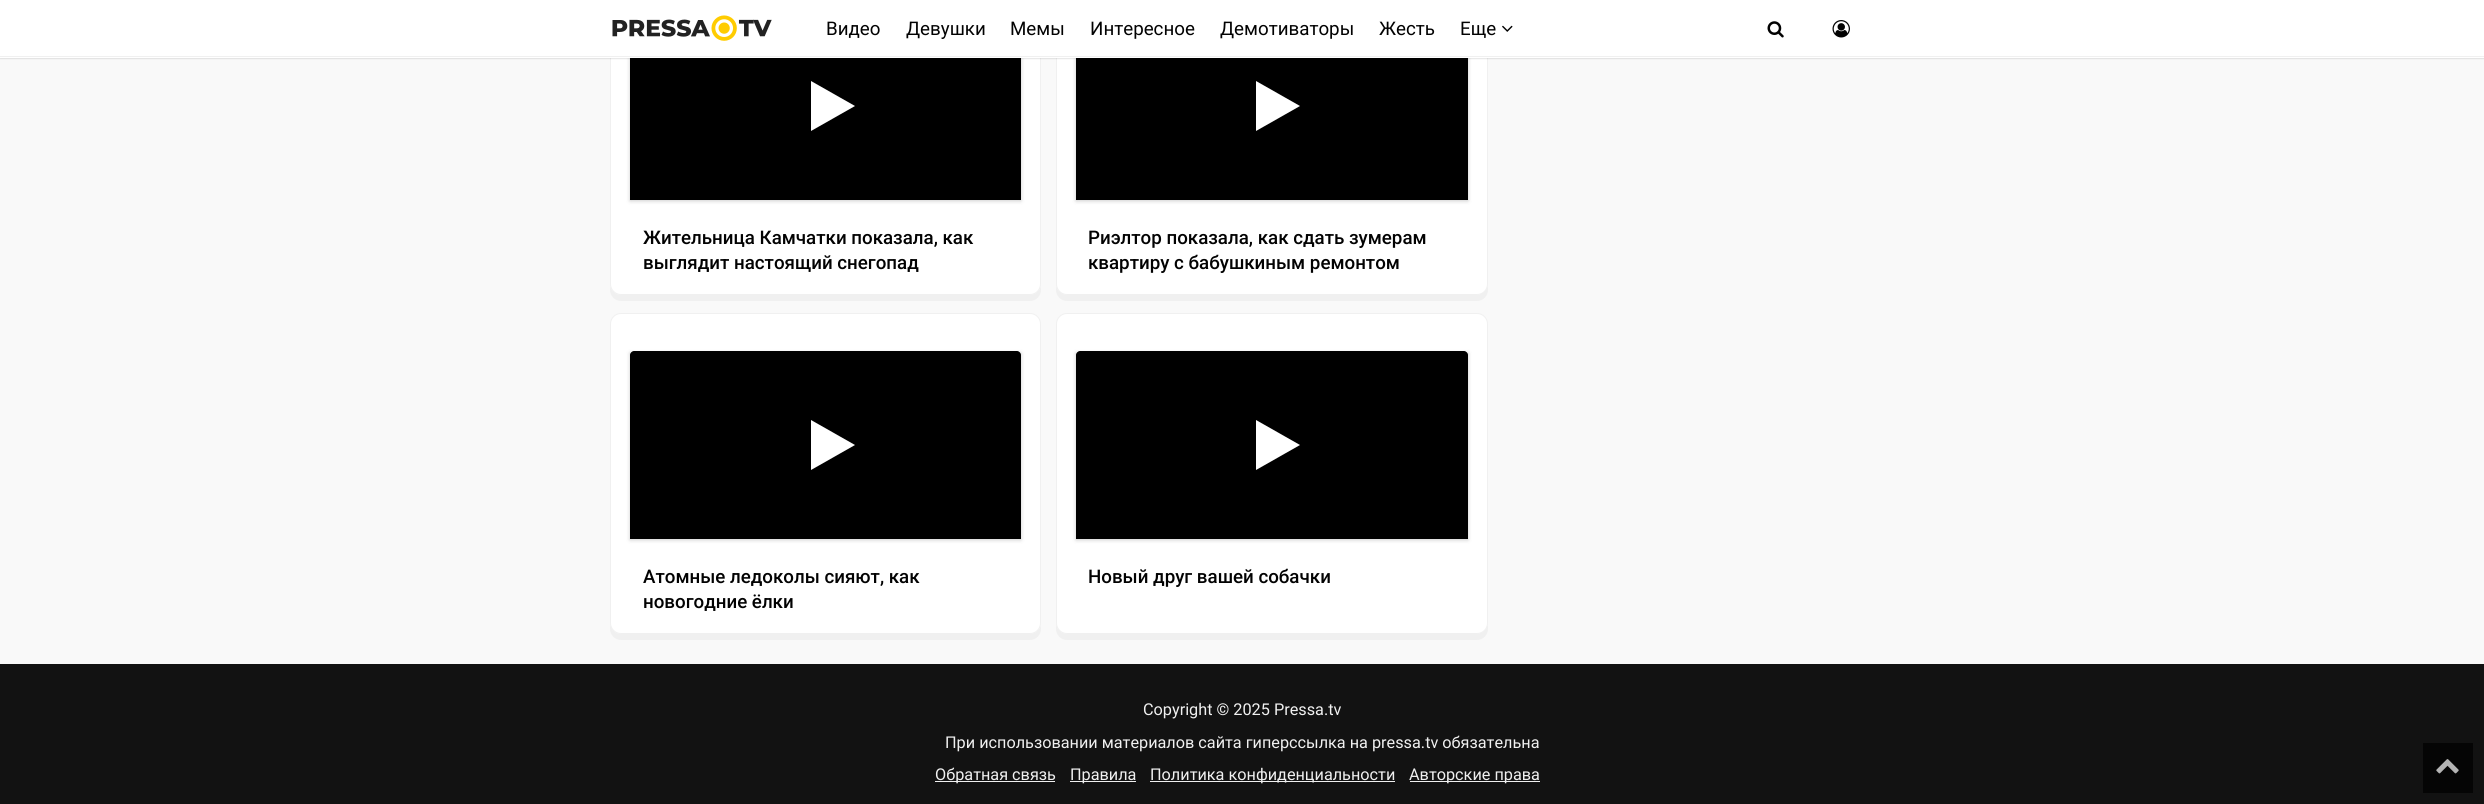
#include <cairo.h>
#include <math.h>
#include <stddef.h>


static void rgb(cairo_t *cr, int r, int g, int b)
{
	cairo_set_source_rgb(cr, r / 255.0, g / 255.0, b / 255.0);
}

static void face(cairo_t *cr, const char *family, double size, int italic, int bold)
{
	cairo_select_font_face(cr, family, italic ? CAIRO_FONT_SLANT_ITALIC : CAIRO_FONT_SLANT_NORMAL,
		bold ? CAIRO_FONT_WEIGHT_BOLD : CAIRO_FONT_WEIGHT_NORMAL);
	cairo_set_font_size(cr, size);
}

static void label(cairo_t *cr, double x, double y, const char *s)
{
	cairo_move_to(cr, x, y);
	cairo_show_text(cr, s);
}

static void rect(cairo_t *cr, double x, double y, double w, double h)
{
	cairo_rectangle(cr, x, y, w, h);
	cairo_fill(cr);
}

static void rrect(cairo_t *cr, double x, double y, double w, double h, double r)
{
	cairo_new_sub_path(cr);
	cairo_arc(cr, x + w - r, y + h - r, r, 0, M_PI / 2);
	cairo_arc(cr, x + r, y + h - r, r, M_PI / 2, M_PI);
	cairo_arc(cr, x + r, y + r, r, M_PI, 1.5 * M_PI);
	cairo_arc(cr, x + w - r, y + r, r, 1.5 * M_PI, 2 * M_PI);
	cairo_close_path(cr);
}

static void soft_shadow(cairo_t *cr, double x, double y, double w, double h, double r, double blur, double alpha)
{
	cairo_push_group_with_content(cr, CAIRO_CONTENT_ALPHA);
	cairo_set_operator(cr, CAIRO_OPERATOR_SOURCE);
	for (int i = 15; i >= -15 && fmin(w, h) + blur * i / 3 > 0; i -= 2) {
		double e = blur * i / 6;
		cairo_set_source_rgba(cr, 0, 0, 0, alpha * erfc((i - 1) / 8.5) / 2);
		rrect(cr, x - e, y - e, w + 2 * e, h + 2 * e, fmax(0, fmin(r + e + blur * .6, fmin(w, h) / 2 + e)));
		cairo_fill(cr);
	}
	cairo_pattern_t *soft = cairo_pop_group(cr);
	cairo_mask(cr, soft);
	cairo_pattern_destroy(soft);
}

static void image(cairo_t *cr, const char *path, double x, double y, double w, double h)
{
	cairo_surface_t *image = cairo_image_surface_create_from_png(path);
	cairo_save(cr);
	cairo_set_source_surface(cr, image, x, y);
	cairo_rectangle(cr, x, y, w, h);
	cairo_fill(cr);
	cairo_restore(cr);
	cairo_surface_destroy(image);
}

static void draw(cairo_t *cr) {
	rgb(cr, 249, 249, 249);
	cairo_paint(cr);
	rgb(cr, 240, 240, 240);
	cairo_new_path(cr);
	cairo_move_to(cr, 610, 284);
	cairo_line_to(cr, 610, 290);
	cairo_curve_to(cr, 610, 296, 615, 301, 621, 301);
	cairo_line_to(cr, 1030, 301);
	cairo_curve_to(cr, 1036, 301, 1041, 296, 1041, 290);
	cairo_line_to(cr, 1041, 286);
	cairo_curve_to(cr, 1040, 291, 1035, 295, 1030, 295);
	cairo_line_to(cr, 621, 295);
	cairo_curve_to(cr, 615, 295, 610, 290, 610, 284);
	cairo_close_path(cr);
	cairo_fill(cr);
	rgb(cr, 255, 255, 255);
	rrect(cr, 610.5, -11.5, 430, 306, 10.5);
	cairo_fill_preserve(cr);
	rgb(cr, 240, 240, 240);
	cairo_set_line_width(cr, 1);
	cairo_stroke(cr);
	rgb(cr, 0, 0, 0);
	soft_shadow(cr, 630, 14, 391, 187, 0, 2, 0.2);
	rgb(cr, 0, 0, 0);
	rect(cr, 630, 58, 391, 142);
	rgb(cr, 240, 240, 240);
	cairo_new_path(cr);
	cairo_move_to(cr, 1056, -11);
	cairo_line_to(cr, 1056, 290);
	cairo_curve_to(cr, 1056, 296, 1061, 301, 1067, 301);
	cairo_line_to(cr, 1477, 301);
	cairo_curve_to(cr, 1483, 301, 1488, 296, 1488, 290);
	cairo_line_to(cr, 1488, -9);
	cairo_line_to(cr, 1488, -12);
	cairo_line_to(cr, 1488, 284);
	cairo_curve_to(cr, 1488, 290, 1482, 295, 1476, 295);
	cairo_line_to(cr, 1068, 295);
	cairo_curve_to(cr, 1061, 295, 1056, 290, 1056, 284);
	cairo_close_path(cr);
	cairo_fill(cr);
	rgb(cr, 255, 255, 255);
	rrect(cr, 1056.5, -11.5, 431, 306, 10.5);
	cairo_fill_preserve(cr);
	rgb(cr, 240, 240, 240);
	cairo_stroke(cr);
	rgb(cr, 0, 0, 0);
	soft_shadow(cr, 1076, 14, 392, 187, 0, 2, 0.2);
	rgb(cr, 0, 0, 0);
	rect(cr, 1076, 58, 392, 142);
	rgb(cr, 0, 0, 0);
	soft_shadow(cr, 0, 1, 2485, 58, 0, 0.5, 0.1);
	rgb(cr, 255, 255, 255);
	rect(cr, 0, 0, 2484, 58);
	rgb(cr, 240, 240, 240);
	rect(cr, 0, 56, 2484, 1);
	image(cr, "image0.png", 612, 15, 160, 26);
	face(cr, "Roboto", 18.75, 0, 0);
	rgb(cr, 2, 2, 2);
	label(cr, 826, 35, "Видео");
	label(cr, 906, 35, "Девушки");
	label(cr, 1010, 35, "Мемы");
	label(cr, 1090, 35, "Интересное");
	label(cr, 1220, 35, "Демотиваторы");
	label(cr, 1379, 35, "Жесть");
	label(cr, 1460, 35, "Еще");
	image(cr, "image1.png", 1502, 25, 11, 7);
	image(cr, "image2.png", 1767, 21, 17, 17);
	image(cr, "image3.png", 1832, 20, 18, 18);
	rgb(cr, 255, 255, 255);
	cairo_new_path(cr);
	cairo_move_to(cr, 811, 131);
	cairo_line_to(cr, 811, 81);
	cairo_line_to(cr, 855, 106);
	cairo_close_path(cr);
	cairo_fill(cr);
	face(cr, "Roboto Medium", 18.75, 0, 0);
	rgb(cr, 2, 2, 2);
	label(cr, 643, 244, "Жительница Камчатки показала, как");
	label(cr, 643, 269, "выглядит настоящий снегопад");
	rgb(cr, 255, 255, 255);
	cairo_new_path(cr);
	cairo_move_to(cr, 1256, 131);
	cairo_line_to(cr, 1256, 81);
	cairo_line_to(cr, 1300, 106);
	cairo_close_path(cr);
	cairo_fill(cr);
	rgb(cr, 2, 2, 2);
	label(cr, 1088, 244, "Риэлтор показала, как сдать зумерам");
	label(cr, 1088, 269, "квартиру с бабушкиным ремонтом");
	rgb(cr, 240, 240, 240);
	cairo_new_path(cr);
	cairo_move_to(cr, 610, 622);
	cairo_line_to(cr, 610, 629);
	cairo_curve_to(cr, 610, 635, 615, 640, 621, 640);
	cairo_line_to(cr, 1030, 640);
	cairo_curve_to(cr, 1036, 640, 1041, 635, 1041, 629);
	cairo_line_to(cr, 1041, 625);
	cairo_curve_to(cr, 1040, 630, 1035, 634, 1030, 634);
	cairo_line_to(cr, 621, 634);
	cairo_curve_to(cr, 615, 634, 610, 629, 610, 622);
	cairo_close_path(cr);
	cairo_fill(cr);
	rgb(cr, 255, 255, 255);
	rrect(cr, 610.5, 313.5, 430, 320, 10.5);
	cairo_fill_preserve(cr);
	rgb(cr, 240, 240, 240);
	cairo_stroke(cr);
	rgb(cr, 0, 0, 0);
	soft_shadow(cr, 630, 353, 391, 187, 0, 2, 0.2);
	rgb(cr, 0, 0, 0);
	cairo_new_path(cr);
	cairo_move_to(cr, 634, 351);
	cairo_line_to(cr, 1017, 351);
	cairo_curve_to(cr, 1019, 351, 1021, 353, 1021, 355);
	cairo_line_to(cr, 1021, 539);
	cairo_line_to(cr, 630, 539);
	cairo_line_to(cr, 630, 355);
	cairo_curve_to(cr, 630, 353, 632, 351, 634, 351);
	cairo_close_path(cr);
	cairo_fill(cr);
	rgb(cr, 255, 255, 255);
	cairo_new_path(cr);
	cairo_move_to(cr, 811, 470);
	cairo_line_to(cr, 811, 420);
	cairo_line_to(cr, 855, 445);
	cairo_close_path(cr);
	cairo_fill(cr);
	rgb(cr, 2, 2, 2);
	label(cr, 643, 583, "Атомные ледоколы сияют, как");
	label(cr, 643, 608, "новогодние ёлки");
	rgb(cr, 240, 240, 240);
	cairo_new_path(cr);
	cairo_move_to(cr, 1056, 328);
	cairo_line_to(cr, 1056, 629);
	cairo_curve_to(cr, 1056, 635, 1061, 640, 1067, 640);
	cairo_line_to(cr, 1477, 640);
	cairo_curve_to(cr, 1483, 640, 1488, 635, 1488, 629);
	cairo_line_to(cr, 1488, 330);
	cairo_line_to(cr, 1488, 327);
	cairo_line_to(cr, 1488, 622);
	cairo_curve_to(cr, 1488, 629, 1482, 634, 1476, 634);
	cairo_line_to(cr, 1068, 634);
	cairo_curve_to(cr, 1061, 634, 1056, 629, 1056, 622);
	cairo_close_path(cr);
	cairo_fill(cr);
	rgb(cr, 255, 255, 255);
	rrect(cr, 1056.5, 313.5, 431, 320, 10.5);
	cairo_fill_preserve(cr);
	rgb(cr, 240, 240, 240);
	cairo_stroke(cr);
	rgb(cr, 0, 0, 0);
	soft_shadow(cr, 1076, 353, 392, 187, 0, 2, 0.2);
	rgb(cr, 0, 0, 0);
	cairo_new_path(cr);
	cairo_move_to(cr, 1080, 351);
	cairo_line_to(cr, 1464, 351);
	cairo_curve_to(cr, 1466, 351, 1468, 353, 1468, 355);
	cairo_line_to(cr, 1468, 539);
	cairo_line_to(cr, 1076, 539);
	cairo_line_to(cr, 1076, 355);
	cairo_curve_to(cr, 1076, 353, 1078, 351, 1080, 351);
	cairo_close_path(cr);
	cairo_fill(cr);
	rgb(cr, 255, 255, 255);
	cairo_new_path(cr);
	cairo_move_to(cr, 1256, 470);
	cairo_line_to(cr, 1256, 420);
	cairo_line_to(cr, 1300, 445);
	cairo_close_path(cr);
	cairo_fill(cr);
	rgb(cr, 2, 2, 2);
	label(cr, 1088, 583, "Новый друг вашей собачки");
	rgb(cr, 18, 18, 18);
	rect(cr, 0, 664, 2484, 140);
	face(cr, "Roboto", 16.25, 0, 0);
	rgb(cr, 240, 240, 240);
	label(cr, 1143, 715, "Copyright © 2025 Pressa.tv");
	label(cr, 945, 748, "При использовании материалов сайта гиперссылка на pressa.tv обязательна");
	rect(cr, 935, 781, 120, 1);
	label(cr, 935, 780, "Обратная связь");
	rect(cr, 1070, 781, 66, 1);
	label(cr, 1070, 780, "Правила");
	rect(cr, 1150, 781, 245, 1);
	label(cr, 1150, 780, "Политика конфиденциальности");
	rect(cr, 1410, 781, 130, 1);
	label(cr, 1409, 780, "Авторские права");
	rgb(cr, 5, 5, 5);
	rect(cr, 2423, 743, 50, 50);
	image(cr, "image4.png", 2436, 759, 23, 15);
}

int main(void) {
	cairo_surface_t *surface = cairo_image_surface_create(CAIRO_FORMAT_RGB24, 2484, 804);
	cairo_t *cr = cairo_create(surface);
	cairo_font_options_t *options = cairo_font_options_create();
	cairo_font_options_set_hint_metrics(options, CAIRO_HINT_METRICS_OFF);
	cairo_font_options_set_hint_style(options, CAIRO_HINT_STYLE_NONE);
	cairo_set_font_options(cr, options);
	cairo_set_miter_limit(cr, 4);
	draw(cr);
	cairo_surface_write_to_png(surface, "render.png");
	cairo_font_options_destroy(options);
	cairo_destroy(cr);
	cairo_surface_destroy(surface);
	return 0;
}
